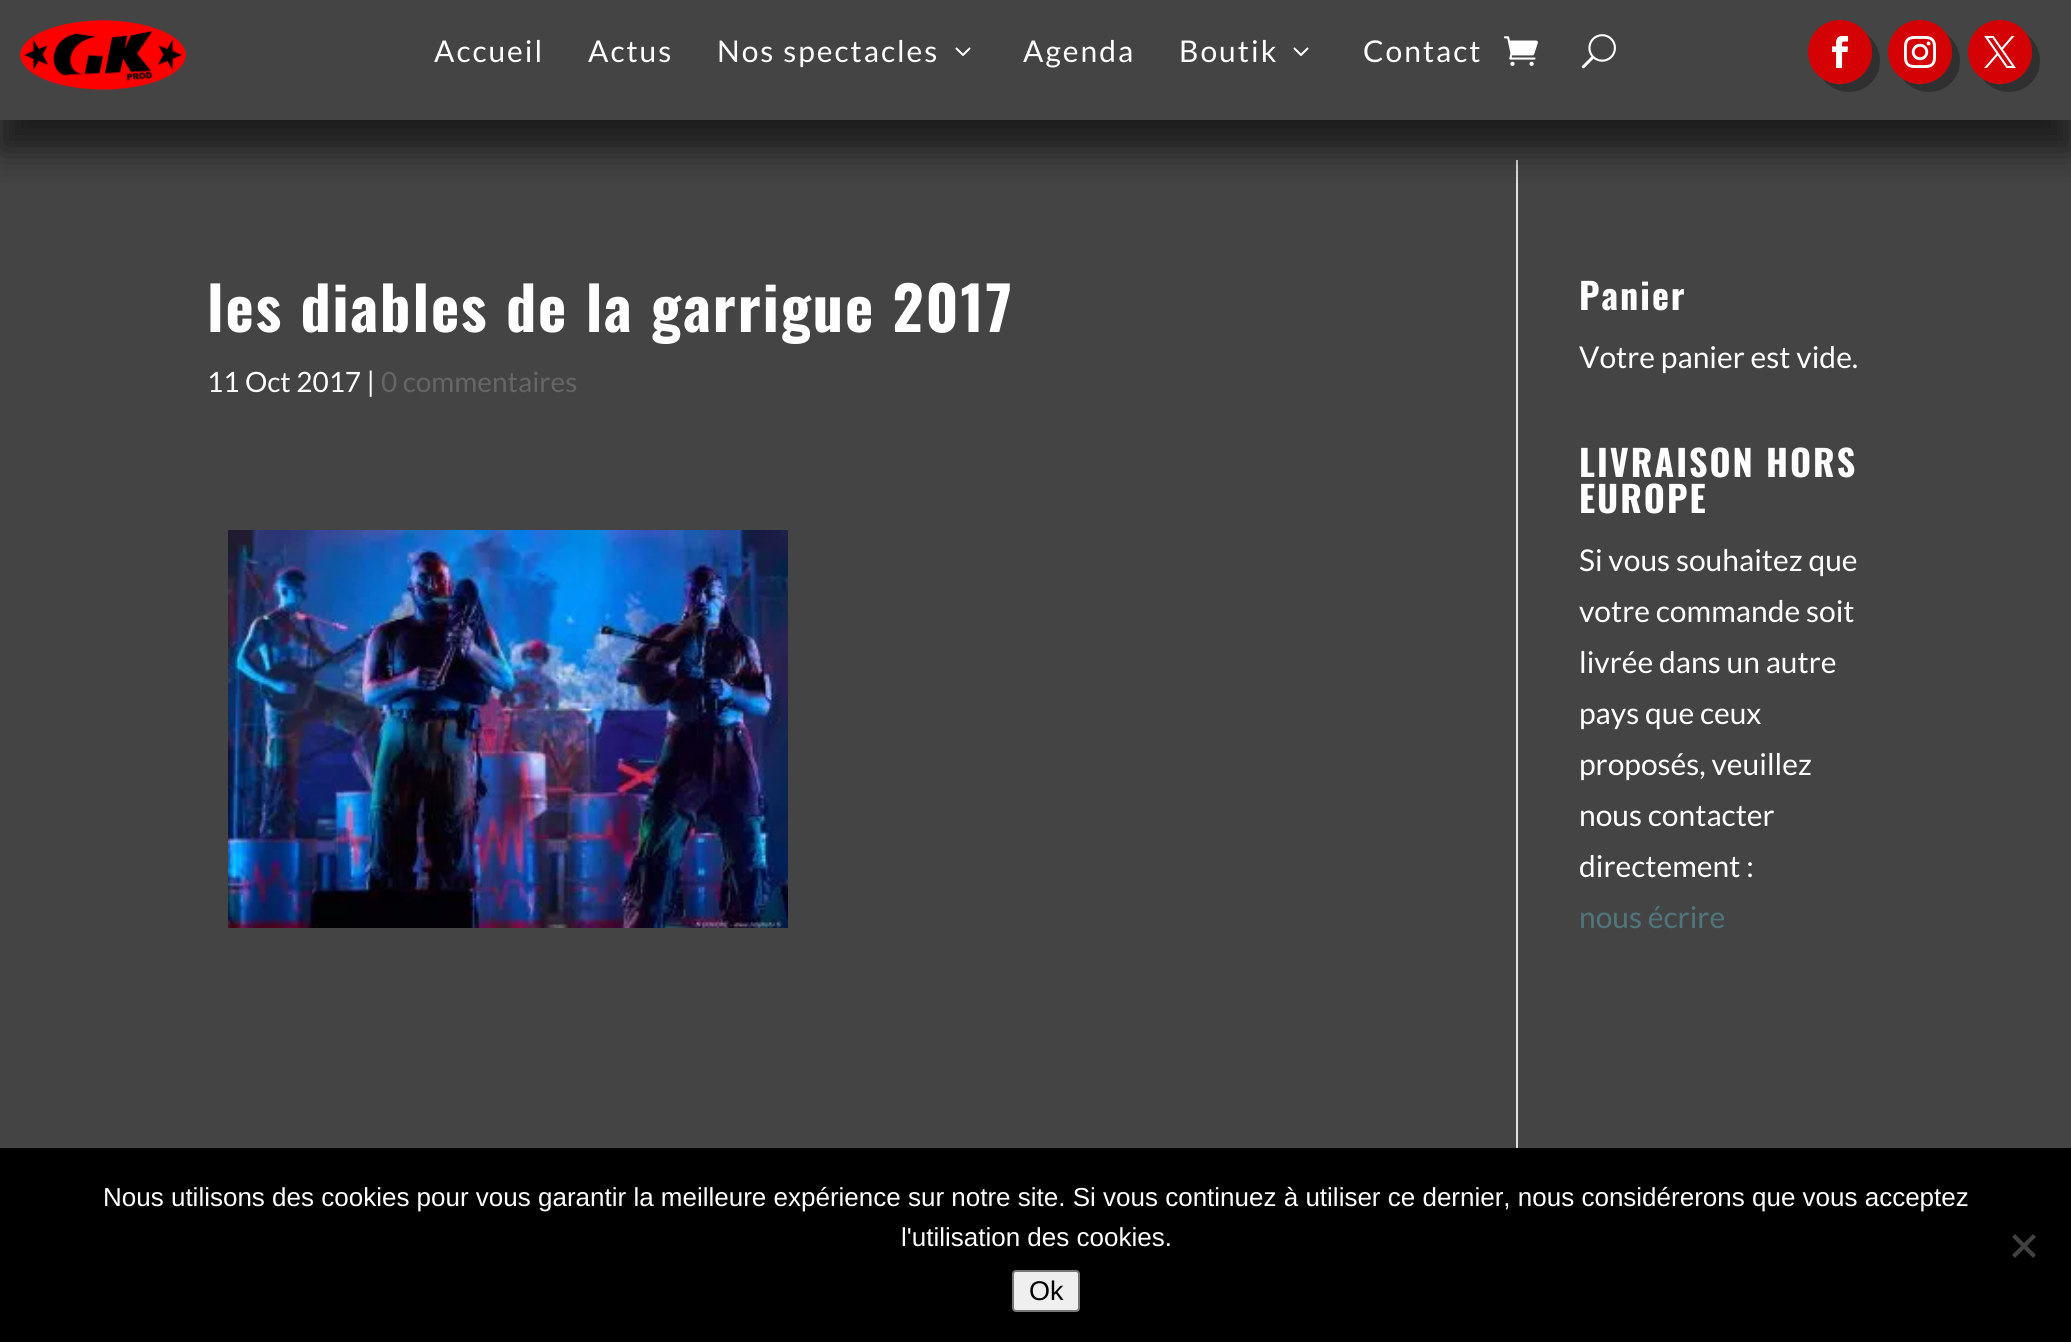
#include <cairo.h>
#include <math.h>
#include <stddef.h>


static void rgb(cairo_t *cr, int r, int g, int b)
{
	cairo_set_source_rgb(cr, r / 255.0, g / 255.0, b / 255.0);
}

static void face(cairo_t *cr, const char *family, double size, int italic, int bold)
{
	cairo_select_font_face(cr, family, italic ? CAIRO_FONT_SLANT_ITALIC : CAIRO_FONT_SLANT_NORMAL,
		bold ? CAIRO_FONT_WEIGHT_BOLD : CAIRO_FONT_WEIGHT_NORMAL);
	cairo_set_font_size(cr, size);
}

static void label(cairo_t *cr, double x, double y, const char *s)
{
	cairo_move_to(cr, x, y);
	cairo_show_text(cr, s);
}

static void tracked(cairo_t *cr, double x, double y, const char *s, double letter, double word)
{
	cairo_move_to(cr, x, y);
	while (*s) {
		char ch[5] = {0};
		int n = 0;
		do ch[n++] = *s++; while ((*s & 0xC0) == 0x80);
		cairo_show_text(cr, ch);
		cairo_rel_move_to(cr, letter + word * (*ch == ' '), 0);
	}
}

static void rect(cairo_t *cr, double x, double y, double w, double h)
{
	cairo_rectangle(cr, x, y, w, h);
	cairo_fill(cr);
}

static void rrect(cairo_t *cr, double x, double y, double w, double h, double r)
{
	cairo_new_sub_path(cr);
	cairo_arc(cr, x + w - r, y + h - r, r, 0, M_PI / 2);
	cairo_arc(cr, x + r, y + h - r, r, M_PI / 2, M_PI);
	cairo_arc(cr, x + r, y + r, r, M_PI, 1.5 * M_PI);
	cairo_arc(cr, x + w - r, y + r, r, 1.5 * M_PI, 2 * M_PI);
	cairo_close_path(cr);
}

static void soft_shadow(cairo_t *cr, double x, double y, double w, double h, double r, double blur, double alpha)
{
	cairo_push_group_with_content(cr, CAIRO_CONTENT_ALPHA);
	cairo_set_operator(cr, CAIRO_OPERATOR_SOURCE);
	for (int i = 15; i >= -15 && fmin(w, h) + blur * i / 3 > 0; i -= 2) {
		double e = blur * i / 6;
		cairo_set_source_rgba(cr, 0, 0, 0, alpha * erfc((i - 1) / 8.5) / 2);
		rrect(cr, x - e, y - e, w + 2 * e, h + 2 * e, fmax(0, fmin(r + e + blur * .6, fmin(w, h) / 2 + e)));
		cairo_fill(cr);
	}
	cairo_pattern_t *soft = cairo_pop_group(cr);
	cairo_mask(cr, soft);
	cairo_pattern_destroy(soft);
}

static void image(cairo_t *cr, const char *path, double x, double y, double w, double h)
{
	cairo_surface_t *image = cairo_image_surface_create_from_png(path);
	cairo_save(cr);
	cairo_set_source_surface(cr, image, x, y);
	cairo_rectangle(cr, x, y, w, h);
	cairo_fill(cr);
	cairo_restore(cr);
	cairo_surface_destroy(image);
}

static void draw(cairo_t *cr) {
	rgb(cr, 68, 68, 68);
	cairo_paint(cr);
	rgb(cr, 226, 226, 226);
	rect(cr, 1516, 160, 2, 988);
	cairo_save(cr);
	cairo_rectangle(cr, 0, 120, 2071, 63);
	cairo_clip(cr);
	rgb(cr, 0, 0, 0);
	soft_shadow(cr, 0, 30, 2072, 120, 0, 18, 0.6);
	cairo_restore(cr);
	image(cr, "image0.png", 20, 20, 166, 70);
	face(cr, "Lato", 30, 0, 0);
	rgb(cr, 255, 255, 255);
	tracked(cr, 434, 62, "Accueil", 2, 0);
	tracked(cr, 588, 62, "Actus", 2, 0);
	tracked(cr, 717, 62, "Nos spectacles", 2, 0);
	image(cr, "image1.png", 955, 47, 16, 9);
	tracked(cr, 1023, 62, "Agenda", 2, 0);
	tracked(cr, 1179, 62, "Boutik", 2, 0);
	image(cr, "image1.png", 1293, 47, 16, 9);
	tracked(cr, 1363, 62, "Contact", 2, 0);
	image(cr, "image2.png", 1503, 36, 35, 30);
	image(cr, "image3.png", 1581, 34, 35, 35);
	rgb(cr, 48, 48, 48);
	cairo_new_path(cr);
	cairo_move_to(cr, 1822, 78);
	cairo_curve_to(cr, 1833, 94, 1857, 97, 1871, 83);
	cairo_curve_to(cr, 1885, 69, 1882, 45, 1866, 34);
	cairo_curve_to(cr, 1886, 63, 1851, 98, 1822, 78);
	cairo_close_path(cr);
	cairo_fill(cr);
	rgb(cr, 212, 2, 5);
	cairo_arc(cr, 1840, 52, 32, 0, 2 * M_PI);
	cairo_fill(cr);
	image(cr, "image4.png", 1832, 36, 17, 32);
	rgb(cr, 48, 48, 48);
	cairo_new_path(cr);
	cairo_move_to(cr, 1902, 78);
	cairo_curve_to(cr, 1913, 94, 1937, 97, 1951, 83);
	cairo_curve_to(cr, 1965, 69, 1962, 45, 1946, 34);
	cairo_curve_to(cr, 1966, 63, 1931, 98, 1902, 78);
	cairo_close_path(cr);
	cairo_fill(cr);
	rgb(cr, 212, 2, 5);
	cairo_arc(cr, 1920, 52, 32, 0, 2 * M_PI);
	cairo_fill(cr);
	image(cr, "image5.png", 1904, 36, 32, 32);
	rgb(cr, 48, 48, 48);
	cairo_new_path(cr);
	cairo_move_to(cr, 1982, 78);
	cairo_curve_to(cr, 1993, 94, 2017, 97, 2031, 83);
	cairo_curve_to(cr, 2045, 69, 2042, 45, 2026, 34);
	cairo_curve_to(cr, 2046, 63, 2011, 98, 1982, 78);
	cairo_close_path(cr);
	cairo_fill(cr);
	rgb(cr, 212, 2, 5);
	cairo_arc(cr, 2000, 52, 32, 0, 2 * M_PI);
	cairo_fill(cr);
	image(cr, "image6.png", 1984, 36, 32, 32);
	face(cr, "Oswald", 60, 0, 1);
	rgb(cr, 255, 255, 255);
	tracked(cr, 207, 332, "les diables de la garrigue 2017", 2, 0);
	face(cr, "Lato", 28, 0, 0);
	label(cr, 207, 392, "11 Oct 2017 |");
	rgb(cr, 102, 102, 102);
	label(cr, 381, 392, "0 commentaires");
	image(cr, "image7.png", 228, 530, 560, 398);
	face(cr, "Oswald", 36, 0, 1);
	rgb(cr, 255, 255, 255);
	tracked(cr, 1579, 310, "Panier", 2, 0);
	face(cr, "Lato", 30, 0, 0);
	label(cr, 1579, 368, "Votre panier est vide.");
	face(cr, "Oswald", 36, 0, 1);
	tracked(cr, 1579, 477, "LIVRAISON HORS", 2, 0);
	tracked(cr, 1579, 513, "EUROPE", 2, 0);
	face(cr, "Lato", 30, 0, 0);
	label(cr, 1579, 571, "Si vous souhaitez que");
	label(cr, 1579, 622, "votre commande soit");
	label(cr, 1579, 673, "livrée dans un autre");
	label(cr, 1579, 724, "pays que ceux");
	label(cr, 1579, 775, "proposés, veuillez");
	label(cr, 1579, 826, "nous contacter");
	label(cr, 1579, 877, "directement :");
	rgb(cr, 80, 118, 124);
	label(cr, 1579, 928, "nous écrire");
	rgb(cr, 0, 0, 0);
	rect(cr, 0, 1148, 2071, 194);
	face(cr, "Liberation Sans", 26, 0, 0);
	rgb(cr, 255, 255, 255);
	label(cr, 103, 1206, "Nous utilisons des cookies pour vous garantir la meilleure expérience sur notre site. Si vous continuez à utiliser ce dernier, nous considérerons que vous acceptez");
	label(cr, 901, 1246, "l'utilisation des cookies.");
	rgb(cr, 64, 64, 64);
	cairo_new_path(cr);
	cairo_move_to(cr, 2033, 1234);
	cairo_line_to(cr, 2036, 1237);
	cairo_line_to(cr, 2015, 1258);
	cairo_line_to(cr, 2012, 1255);
	cairo_close_path(cr);
	cairo_fill(cr);
	cairo_new_path(cr);
	cairo_move_to(cr, 2012, 1237);
	cairo_line_to(cr, 2015, 1234);
	cairo_line_to(cr, 2036, 1255);
	cairo_line_to(cr, 2033, 1258);
	cairo_close_path(cr);
	cairo_fill(cr);
	rgb(cr, 239, 239, 239);
	rrect(cr, 1013, 1271, 66, 40, 3);
	cairo_fill_preserve(cr);
	rgb(cr, 118, 118, 118);
	cairo_stroke(cr);
	face(cr, "Liberation Sans", 27, 0, 0);
	rgb(cr, 0, 0, 0);
	label(cr, 1029, 1300, "Ok");
}

int main(void) {
	cairo_surface_t *surface = cairo_image_surface_create(CAIRO_FORMAT_RGB24, 2071, 1342);
	cairo_t *cr = cairo_create(surface);
	cairo_font_options_t *options = cairo_font_options_create();
	cairo_font_options_set_hint_metrics(options, CAIRO_HINT_METRICS_OFF);
	cairo_font_options_set_hint_style(options, CAIRO_HINT_STYLE_NONE);
	cairo_set_font_options(cr, options);
	cairo_set_miter_limit(cr, 4);
	draw(cr);
	cairo_surface_write_to_png(surface, "render.png");
	cairo_font_options_destroy(options);
	cairo_destroy(cr);
	cairo_surface_destroy(surface);
	return 0;
}
